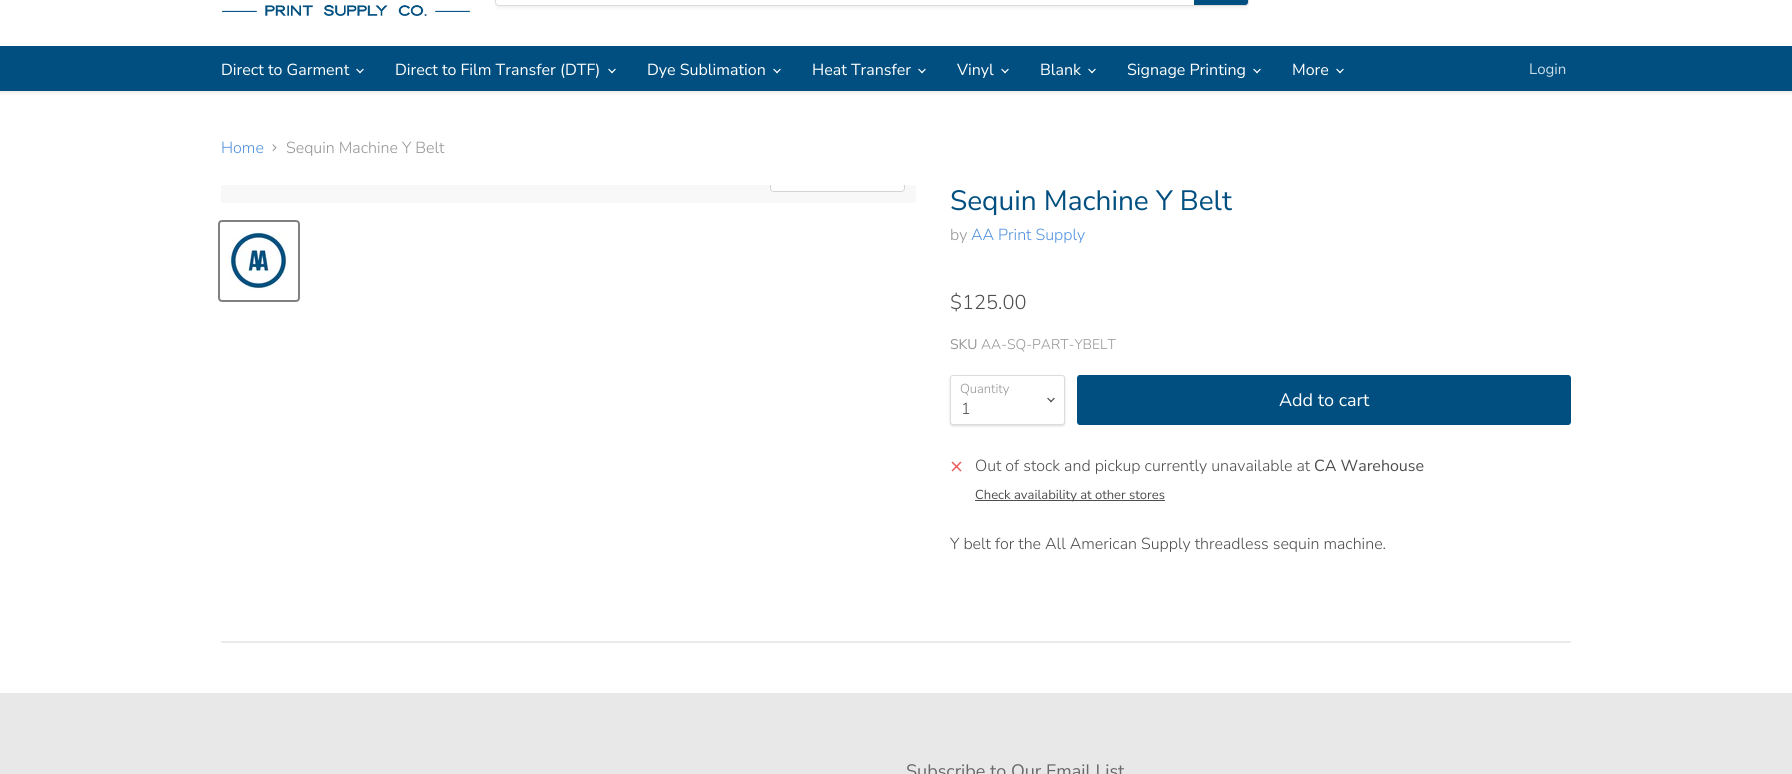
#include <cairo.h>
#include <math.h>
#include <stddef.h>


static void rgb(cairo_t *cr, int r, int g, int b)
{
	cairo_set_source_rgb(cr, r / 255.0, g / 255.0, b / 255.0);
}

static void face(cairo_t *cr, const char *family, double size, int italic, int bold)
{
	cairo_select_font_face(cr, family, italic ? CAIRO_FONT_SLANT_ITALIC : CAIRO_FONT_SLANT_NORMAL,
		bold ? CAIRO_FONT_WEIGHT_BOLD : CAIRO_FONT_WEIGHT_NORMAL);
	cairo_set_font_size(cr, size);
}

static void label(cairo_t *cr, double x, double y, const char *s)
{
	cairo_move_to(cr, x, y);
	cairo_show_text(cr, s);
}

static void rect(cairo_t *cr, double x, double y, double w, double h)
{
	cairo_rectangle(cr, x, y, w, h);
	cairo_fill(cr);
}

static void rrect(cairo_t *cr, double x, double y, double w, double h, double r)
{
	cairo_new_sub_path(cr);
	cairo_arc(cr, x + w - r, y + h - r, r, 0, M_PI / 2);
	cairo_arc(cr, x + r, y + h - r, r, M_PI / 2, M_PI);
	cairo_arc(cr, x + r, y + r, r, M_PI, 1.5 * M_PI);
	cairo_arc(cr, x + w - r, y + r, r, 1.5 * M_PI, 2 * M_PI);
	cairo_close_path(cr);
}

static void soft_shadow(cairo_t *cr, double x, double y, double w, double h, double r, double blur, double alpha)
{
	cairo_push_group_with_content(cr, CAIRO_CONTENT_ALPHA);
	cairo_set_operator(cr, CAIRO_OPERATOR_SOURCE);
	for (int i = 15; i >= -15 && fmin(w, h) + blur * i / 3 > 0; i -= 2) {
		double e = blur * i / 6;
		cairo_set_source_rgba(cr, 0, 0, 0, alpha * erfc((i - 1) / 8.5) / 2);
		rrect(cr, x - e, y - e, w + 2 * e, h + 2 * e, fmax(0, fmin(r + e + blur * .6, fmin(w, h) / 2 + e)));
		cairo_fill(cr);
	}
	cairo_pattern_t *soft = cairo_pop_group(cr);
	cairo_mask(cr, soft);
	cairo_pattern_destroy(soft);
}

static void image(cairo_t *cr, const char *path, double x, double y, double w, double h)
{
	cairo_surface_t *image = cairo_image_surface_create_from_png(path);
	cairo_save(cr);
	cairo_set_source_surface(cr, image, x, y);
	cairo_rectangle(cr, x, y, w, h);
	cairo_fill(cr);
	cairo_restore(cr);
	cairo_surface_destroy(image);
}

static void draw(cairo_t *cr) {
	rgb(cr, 255, 255, 255);
	cairo_paint(cr);
	cairo_save(cr);
	cairo_rectangle(cr, 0, 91, 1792, 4);
	cairo_clip(cr);
	rgb(cr, 128, 128, 128);
	soft_shadow(cr, 0, -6, 1792, 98, 0, 2, 0.25);
	cairo_restore(cr);
	image(cr, "image0.png", 222, 4, 248, 12);
	rgb(cr, 128, 128, 128);
	soft_shadow(cr, 495, -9, 754, 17, 4, 1.5, 0.11);
	rrect(cr, 495.5, -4.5, 753, 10, 3.5);
	cairo_set_source_rgba(cr, 0.502, 0.502, 0.502, 0.2);
	cairo_set_line_width(cr, 1);
	cairo_stroke(cr);
	rgb(cr, 255, 255, 255);
	cairo_new_path(cr);
	cairo_move_to(cr, 499, -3);
	cairo_line_to(cr, 1194, -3);
	cairo_line_to(cr, 1194, 5);
	cairo_line_to(cr, 499, 5);
	cairo_curve_to(cr, 497.5, 5, 496, 3.5, 496, 2);
	cairo_line_to(cr, 496, 0);
	cairo_curve_to(cr, 496, -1.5, 497.5, -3, 499, -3);
	cairo_close_path(cr);
	cairo_fill(cr);
	rgb(cr, 0, 79, 128);
	cairo_new_path(cr);
	cairo_move_to(cr, 1194.5, -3.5);
	cairo_line_to(cr, 1245, -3.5);
	cairo_curve_to(cr, 1246.5, -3.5, 1247.5, -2.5, 1247.5, -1);
	cairo_line_to(cr, 1247.5, 2);
	cairo_curve_to(cr, 1247.5, 3.5, 1246.5, 4.5, 1245, 4.5);
	cairo_line_to(cr, 1194.5, 4.5);
	cairo_close_path(cr);
	cairo_fill_preserve(cr);
	cairo_stroke(cr);
	rect(cr, 0, 46, 1792, 45);
	face(cr, "Nunito Sans", 16, 0, 0);
	rgb(cr, 255, 255, 255);
	label(cr, 221, 75, "Direct to Garment");
	image(cr, "image1.png", 356, 68, 8, 6);
	label(cr, 395, 75, "Direct to Film Transfer (DTF)");
	image(cr, "image1.png", 608, 68, 8, 6);
	label(cr, 647, 75, "Dye Sublimation");
	image(cr, "image1.png", 773, 68, 8, 6);
	label(cr, 812, 75, "Heat Transfer");
	image(cr, "image1.png", 918, 68, 8, 6);
	label(cr, 957, 75, "Vinyl");
	image(cr, "image1.png", 1001, 68, 8, 6);
	label(cr, 1040, 75, "Blank");
	image(cr, "image1.png", 1088, 68, 8, 6);
	label(cr, 1127, 75, "Signage Printing");
	image(cr, "image1.png", 1253, 68, 8, 6);
	label(cr, 1292, 75, "More");
	image(cr, "image1.png", 1336, 68, 8, 6);
	face(cr, "Nunito Sans", 15, 0, 0);
	rgb(cr, 204, 220, 230);
	label(cr, 1529, 74, "Login");
	face(cr, "Nunito Sans Light", 16, 0, 0);
	rgb(cr, 80, 145, 220);
	label(cr, 221, 153, "Home");
	image(cr, "image2.png", 272, 144, 5, 8);
	rgb(cr, 148, 148, 148);
	label(cr, 286, 153, "Sequin Machine Y Belt");
	rgb(cr, 248, 248, 248);
	rect(cr, 221, 185, 695, 18);
	cairo_save(cr);
	cairo_rectangle(cr, 221, 185, 695, 18);
	cairo_clip(cr);
	rrect(cr, 770.5, 162.5, 134, 29, 3.5);
	rgb(cr, 211, 211, 211);
	cairo_stroke(cr);
	cairo_restore(cr);
	cairo_set_source_rgba(cr, 1, 1, 1, 0.9);
	cairo_new_path(cr);
	cairo_move_to(cr, 771, 185);
	cairo_line_to(cr, 904, 185);
	cairo_line_to(cr, 904, 188);
	cairo_curve_to(cr, 904, 189.5, 902.5, 191, 901, 191);
	cairo_line_to(cr, 774, 191);
	cairo_curve_to(cr, 772.5, 191, 771, 189.5, 771, 188);
	cairo_close_path(cr);
	cairo_fill(cr);
	rrect(cr, 219, 221, 80, 80, 3);
	rgb(cr, 129, 129, 129);
	cairo_set_line_width(cr, 2);
	cairo_stroke(cr);
	image(cr, "image3.png", 229, 231, 60, 59);
	face(cr, "Nunito Sans", 28, 0, 0);
	rgb(cr, 0, 79, 128);
	label(cr, 950, 210, "Sequin Machine Y Belt");
	face(cr, "Nunito Sans Light", 16, 0, 0);
	rgb(cr, 148, 148, 148);
	label(cr, 950, 240, "by");
	rgb(cr, 80, 145, 220);
	label(cr, 971, 240, "AA Print Supply");
	face(cr, "Nunito Sans Light", 20, 0, 0);
	rgb(cr, 77, 77, 77);
	label(cr, 950, 309, "$125.00");
	face(cr, "Nunito Sans", 14, 0, 0);
	rgb(cr, 148, 148, 148);
	label(cr, 950, 349, "SKU");
	face(cr, "Nunito Sans Light", 14, 0, 0);
	label(cr, 981, 349, "AA-SQ-PART-YBELT");
	rgb(cr, 0, 0, 0);
	soft_shadow(cr, 950, 376, 115, 50, 3, 1, 0.15);
	rgb(cr, 255, 255, 255);
	rrect(cr, 950.5, 375.5, 114, 49, 2.5);
	cairo_fill_preserve(cr);
	rgb(cr, 221, 221, 221);
	cairo_set_line_width(cr, 1);
	cairo_stroke(cr);
	face(cr, "Nunito Sans Light", 13, 0, 0);
	rgb(cr, 148, 148, 148);
	label(cr, 960, 393, "Quantity");
	image(cr, "image4.png", 1047, 397, 8, 6);
	face(cr, "Nunito Sans Light", 16, 0, 0);
	rgb(cr, 77, 77, 77);
	label(cr, 961, 414, "1");
	rgb(cr, 0, 79, 128);
	rrect(cr, 1077.5, 375.5, 493, 49, 2.5);
	cairo_fill_preserve(cr);
	cairo_stroke(cr);
	face(cr, "Nunito Sans", 18, 0, 0);
	rgb(cr, 255, 255, 255);
	label(cr, 1279, 406, "Add to cart");
	image(cr, "image5.png", 951, 461, 11, 11);
	face(cr, "Nunito Sans Light", 16, 0, 0);
	rgb(cr, 77, 77, 77);
	label(cr, 975, 471, "Out of stock and pickup currently unavailable at");
	face(cr, "Nunito Sans", 16, 0, 0);
	label(cr, 1314, 471, "CA Warehouse");
	rect(cr, 975, 500, 190, 1);
	face(cr, "Nunito Sans", 13, 0, 0);
	label(cr, 975, 499, "Check availability at other stores");
	face(cr, "Nunito Sans Light", 16, 0, 0);
	label(cr, 950, 549, "Y belt for the All American Supply threadless sequin machine.");
	rgb(cr, 235, 235, 235);
	rect(cr, 221, 641, 1350, 2);
	rgb(cr, 232, 232, 232);
	rect(cr, 0, 693, 1792, 81);
	face(cr, "Nunito Sans", 18, 0, 0);
	rgb(cr, 104, 104, 104);
	label(cr, 906, 777, "Subscribe to Our Email List");
}

int main(void) {
	cairo_surface_t *surface = cairo_image_surface_create(CAIRO_FORMAT_RGB24, 1792, 774);
	cairo_t *cr = cairo_create(surface);
	cairo_font_options_t *options = cairo_font_options_create();
	cairo_font_options_set_hint_metrics(options, CAIRO_HINT_METRICS_OFF);
	cairo_font_options_set_hint_style(options, CAIRO_HINT_STYLE_NONE);
	cairo_set_font_options(cr, options);
	cairo_set_miter_limit(cr, 4);
	draw(cr);
	cairo_surface_write_to_png(surface, "render.png");
	cairo_font_options_destroy(options);
	cairo_destroy(cr);
	cairo_surface_destroy(surface);
	return 0;
}
